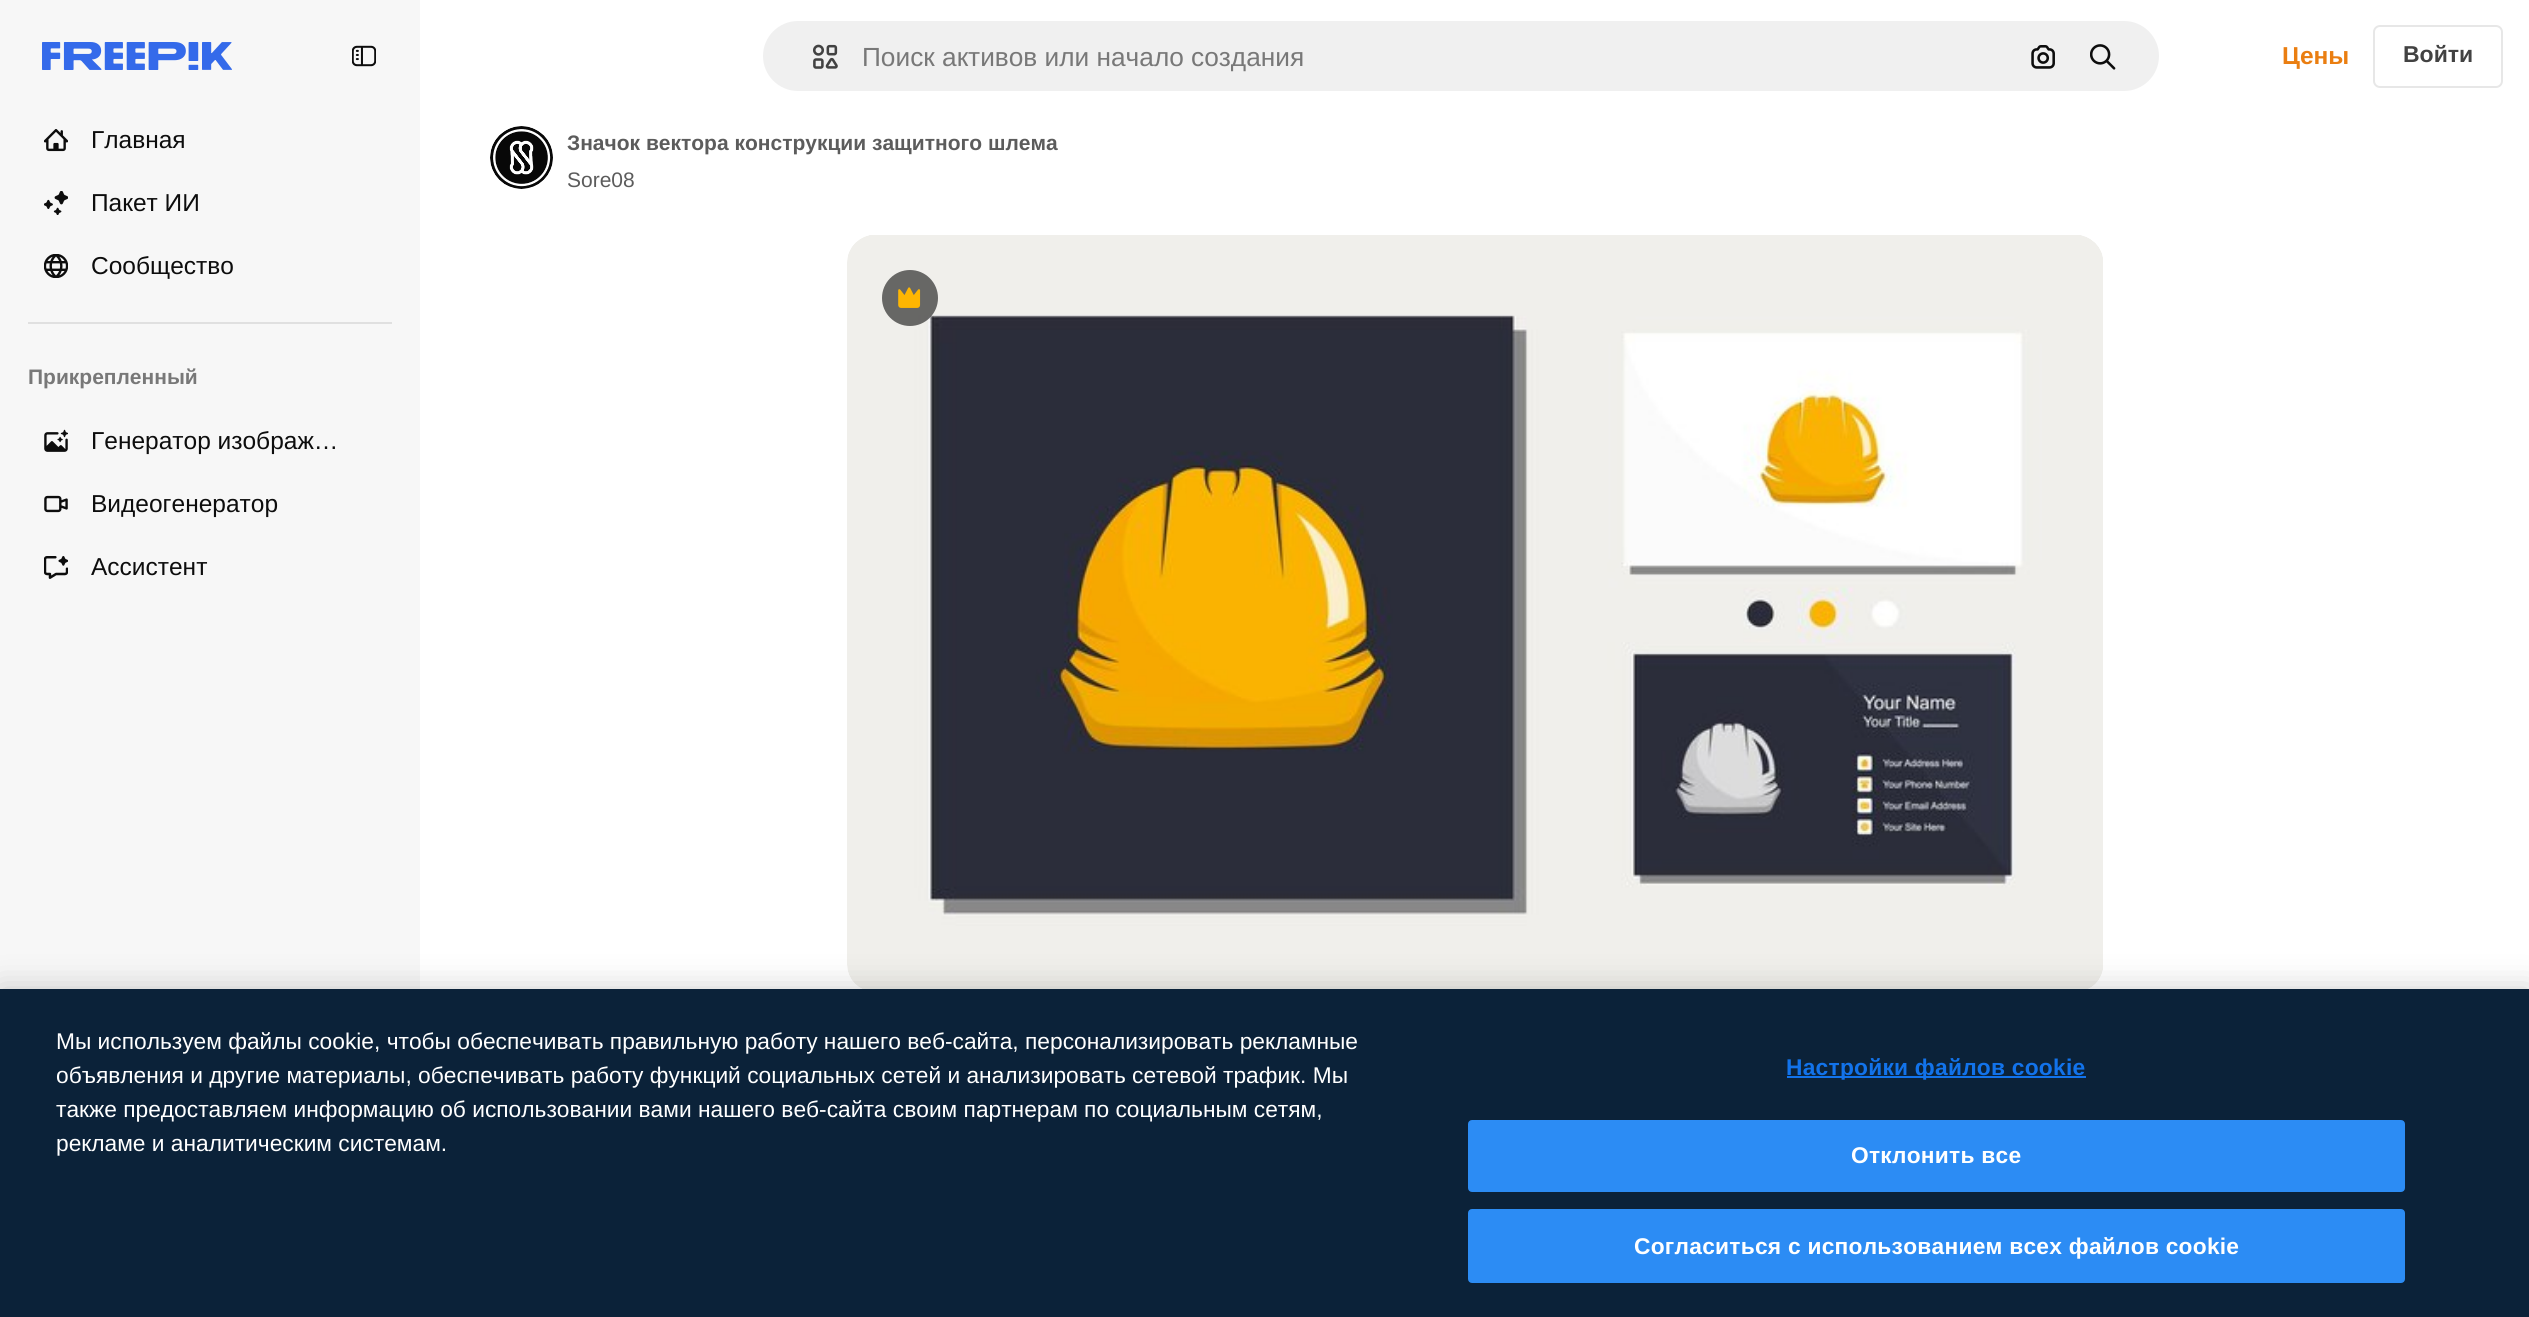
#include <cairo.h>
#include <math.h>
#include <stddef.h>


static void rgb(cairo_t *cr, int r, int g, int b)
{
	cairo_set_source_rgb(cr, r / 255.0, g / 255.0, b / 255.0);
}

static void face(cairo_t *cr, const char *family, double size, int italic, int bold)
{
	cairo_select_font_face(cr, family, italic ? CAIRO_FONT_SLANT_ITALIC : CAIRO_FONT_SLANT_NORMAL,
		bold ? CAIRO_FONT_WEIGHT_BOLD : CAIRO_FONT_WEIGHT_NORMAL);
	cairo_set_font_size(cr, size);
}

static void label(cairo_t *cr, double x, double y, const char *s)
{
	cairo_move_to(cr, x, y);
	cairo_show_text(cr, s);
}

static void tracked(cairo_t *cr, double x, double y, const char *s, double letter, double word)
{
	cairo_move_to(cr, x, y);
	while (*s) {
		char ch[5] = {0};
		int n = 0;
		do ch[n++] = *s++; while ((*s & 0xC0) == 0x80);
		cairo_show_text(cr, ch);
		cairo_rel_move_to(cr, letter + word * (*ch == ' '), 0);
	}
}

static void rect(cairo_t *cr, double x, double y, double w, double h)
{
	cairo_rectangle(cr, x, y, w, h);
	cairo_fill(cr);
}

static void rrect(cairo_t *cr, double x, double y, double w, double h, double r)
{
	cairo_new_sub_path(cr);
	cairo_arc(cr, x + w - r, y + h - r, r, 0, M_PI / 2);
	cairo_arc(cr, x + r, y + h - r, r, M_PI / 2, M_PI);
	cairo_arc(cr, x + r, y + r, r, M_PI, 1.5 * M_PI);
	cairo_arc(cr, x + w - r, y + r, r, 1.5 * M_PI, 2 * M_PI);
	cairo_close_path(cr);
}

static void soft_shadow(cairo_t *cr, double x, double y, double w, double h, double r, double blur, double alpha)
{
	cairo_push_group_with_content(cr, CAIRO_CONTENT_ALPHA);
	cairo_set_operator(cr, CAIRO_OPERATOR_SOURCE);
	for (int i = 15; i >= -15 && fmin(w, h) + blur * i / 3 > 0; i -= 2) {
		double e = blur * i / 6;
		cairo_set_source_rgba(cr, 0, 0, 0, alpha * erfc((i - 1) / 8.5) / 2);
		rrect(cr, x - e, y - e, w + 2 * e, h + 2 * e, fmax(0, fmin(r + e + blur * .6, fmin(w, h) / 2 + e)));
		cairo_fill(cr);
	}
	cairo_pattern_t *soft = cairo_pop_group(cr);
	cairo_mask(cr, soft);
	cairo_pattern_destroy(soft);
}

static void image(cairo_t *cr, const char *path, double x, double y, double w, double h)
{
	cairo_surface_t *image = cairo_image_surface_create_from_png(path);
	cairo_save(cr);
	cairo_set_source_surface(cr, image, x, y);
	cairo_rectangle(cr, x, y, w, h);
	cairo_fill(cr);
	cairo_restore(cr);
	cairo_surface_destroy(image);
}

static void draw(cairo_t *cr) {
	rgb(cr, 255, 255, 255);
	cairo_paint(cr);
	rgb(cr, 240, 240, 240);
	rrect(cr, 762, 20, 1398, 72, 36);
	cairo_fill_preserve(cr);
	rgb(cr, 255, 255, 255);
	cairo_stroke(cr);
	image(cr, "image0.png", 813, 44, 25, 25);
	face(cr, "Liberation Sans", 26.25, 0, 0);
	rgb(cr, 120, 120, 120);
	label(cr, 862, 66, "Поиск активов или начало создания");
	image(cr, "image1.png", 2031, 45, 24, 24);
	image(cr, "image2.png", 2090, 44, 26, 26);
	face(cr, "Liberation Sans", 24.5, 0, 1);
	rgb(cr, 234, 126, 17);
	label(cr, 2282, 64, "Цены");
	rrect(cr, 2374, 26, 128, 61, 6);
	rgb(cr, 231, 231, 231);
	cairo_stroke(cr);
	face(cr, "Liberation Sans", 23, 0, 1);
	rgb(cr, 66, 66, 66);
	label(cr, 2403, 62, "Войти");
	image(cr, "image3.png", 490, 126, 63, 63);
	face(cr, "Liberation Sans", 21, 0, 1);
	rgb(cr, 92, 92, 92);
	label(cr, 567, 150, "Значок вектора конструкции защитного шлема");
	face(cr, "Liberation Sans", 21, 0, 0);
	label(cr, 567, 187, "Sore08");
	image(cr, "image4.png", 847, 235, 1256, 754);
	cairo_set_source_rgba(cr, 0.051, 0.051, 0.051, 0.6);
	cairo_arc(cr, 910, 298, 28, 0, 2 * M_PI);
	cairo_fill(cr);
	image(cr, "image5.png", 898, 287, 23, 21);
	rgb(cr, 247, 247, 247);
	rect(cr, 0, 0, 420, 989);
	image(cr, "image6.png", 42, 42, 190, 28);
	image(cr, "image7.png", 352, 45, 24, 22);
	image(cr, "image8.png", 44, 129, 24, 23);
	face(cr, "Liberation Sans", 24.5, 0, 0);
	rgb(cr, 13, 13, 13);
	label(cr, 91, 148, "Главная");
	image(cr, "image9.png", 44, 191, 24, 24);
	label(cr, 91, 211, "Пакет ИИ");
	image(cr, "image10.png", 44, 254, 24, 24);
	label(cr, 91, 274, "Сообщество");
	rgb(cr, 224, 224, 224);
	rect(cr, 28, 322, 364, 2);
	face(cr, "Liberation Sans", 21, 0, 1);
	rgb(cr, 120, 120, 120);
	label(cr, 28, 384, "Прикрепленный");
	image(cr, "image11.png", 44, 429, 24, 23);
	face(cr, "Liberation Sans", 24.5, 0, 0);
	rgb(cr, 13, 13, 13);
	label(cr, 91, 449, "Генератор изображ…");
	image(cr, "image12.png", 44, 495, 24, 18);
	label(cr, 91, 512, "Видеогенератор");
	image(cr, "image13.png", 44, 556, 24, 23);
	label(cr, 91, 575, "Ассистент");
	rgb(cr, 0, 0, 0);
	soft_shadow(cr, 0, 989, 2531, 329, 0, 16, 0.2);
	rgb(cr, 11, 34, 57);
	rect(cr, 0, 989, 2529, 328);
	face(cr, "Liberation Sans", 22.75, 0, 0);
	rgb(cr, 255, 255, 255);
	label(cr, 56, 1049, "Мы используем файлы cookie, чтобы обеспечивать правильную работу нашего веб-сайта, персонализировать рекламные");
	label(cr, 56, 1083, "объявления и другие материалы, обеспечивать работу функций социальных сетей и анализировать сетевой трафик. Мы");
	label(cr, 56, 1117, "также предоставляем информацию об использовании вами нашего веб-сайта своим партнерам по социальным сетям,");
	label(cr, 56, 1151, "рекламе и аналитическим системам.");
	rgb(cr, 18, 115, 235);
	rect(cr, 1787, 1076, 299, 2);
	face(cr, "Liberation Sans", 22.75, 0, 1);
	tracked(cr, 1786, 1075, "Настройки файлов cookie", 0.25, 0);
	rgb(cr, 44, 140, 244);
	rrect(cr, 1469, 1121, 935, 70, 3);
	cairo_fill_preserve(cr);
	cairo_stroke(cr);
	rgb(cr, 255, 255, 255);
	tracked(cr, 1851, 1163, "Отклонить все", 0.25, 0);
	rgb(cr, 44, 140, 244);
	rrect(cr, 1469, 1210, 935, 72, 3);
	cairo_fill_preserve(cr);
	cairo_stroke(cr);
	rgb(cr, 255, 255, 255);
	tracked(cr, 1634, 1254, "Согласиться с использованием всех файлов cookie", 0.25, 0);
}

int main(void) {
	cairo_surface_t *surface = cairo_image_surface_create(CAIRO_FORMAT_RGB24, 2529, 1317);
	cairo_t *cr = cairo_create(surface);
	cairo_font_options_t *options = cairo_font_options_create();
	cairo_font_options_set_hint_metrics(options, CAIRO_HINT_METRICS_OFF);
	cairo_font_options_set_hint_style(options, CAIRO_HINT_STYLE_NONE);
	cairo_set_font_options(cr, options);
	cairo_set_miter_limit(cr, 4);
	draw(cr);
	cairo_surface_write_to_png(surface, "render.png");
	cairo_font_options_destroy(options);
	cairo_destroy(cr);
	cairo_surface_destroy(surface);
	return 0;
}
